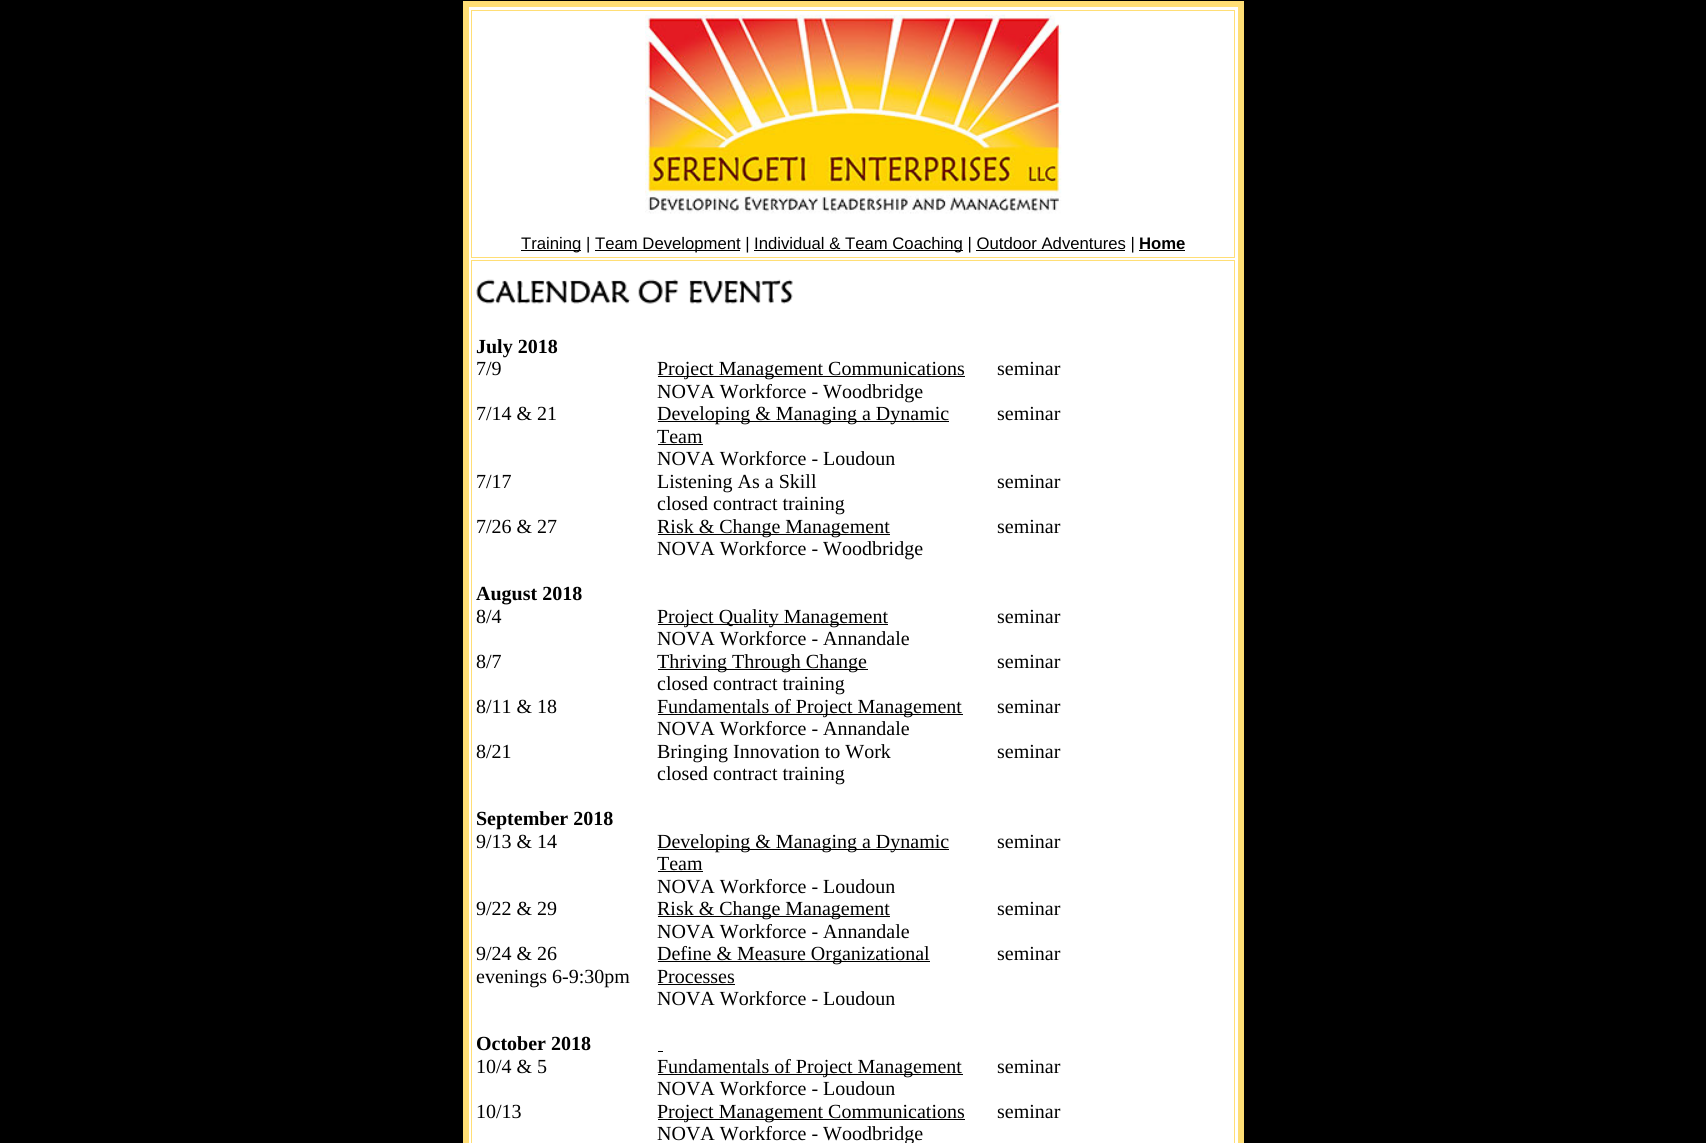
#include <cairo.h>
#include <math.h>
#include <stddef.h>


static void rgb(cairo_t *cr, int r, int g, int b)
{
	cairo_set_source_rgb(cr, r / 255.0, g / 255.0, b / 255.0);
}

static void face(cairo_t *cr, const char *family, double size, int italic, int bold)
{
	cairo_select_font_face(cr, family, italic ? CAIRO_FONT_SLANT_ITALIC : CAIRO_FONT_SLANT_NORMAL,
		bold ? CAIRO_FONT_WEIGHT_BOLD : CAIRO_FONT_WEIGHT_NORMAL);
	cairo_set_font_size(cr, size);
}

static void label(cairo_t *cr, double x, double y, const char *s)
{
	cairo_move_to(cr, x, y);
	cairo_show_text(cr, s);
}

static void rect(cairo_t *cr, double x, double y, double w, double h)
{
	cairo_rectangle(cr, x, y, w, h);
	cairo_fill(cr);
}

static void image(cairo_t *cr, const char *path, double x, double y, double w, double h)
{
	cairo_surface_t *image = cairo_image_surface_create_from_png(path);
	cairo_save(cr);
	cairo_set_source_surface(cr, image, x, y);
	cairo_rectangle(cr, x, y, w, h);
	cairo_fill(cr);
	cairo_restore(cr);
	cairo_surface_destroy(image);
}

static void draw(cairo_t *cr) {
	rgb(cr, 0, 0, 0);
	cairo_paint(cr);
	rgb(cr, 255, 255, 255);
	cairo_rectangle(cr, 466, 4, 775, 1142);
	cairo_fill_preserve(cr);
	rgb(cr, 255, 222, 117);
	cairo_set_line_width(cr, 6);
	cairo_stroke(cr);
	cairo_rectangle(cr, 471.5, 10.5, 763, 247);
	cairo_set_line_width(cr, 1);
	cairo_stroke(cr);
	image(cr, "image0.png", 645, 14, 417, 200);
	rgb(cr, 0, 0, 0);
	rect(cr, 521, 250, 60, 1);
	face(cr, "Liberation Sans", 16.7, 0, 0);
	label(cr, 521, 249, "Training |");
	rect(cr, 595, 250, 145, 1);
	label(cr, 595, 249, "Team Development |");
	rect(cr, 754, 250, 209, 1);
	label(cr, 754, 249, "Individual & Team Coaching | Outdoor Adventures |");
	rect(cr, 976, 250, 149, 1);
	face(cr, "Liberation Sans", 16.7, 0, 1);
	label(cr, 1139, 249, "Home");
	rect(cr, 1139, 250, 46, 1);
	cairo_rectangle(cr, 471.5, 260.5, 763, 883);
	rgb(cr, 255, 222, 117);
	cairo_stroke(cr);
	image(cr, "image1.png", 476, 279, 317, 25);
	face(cr, "Liberation Serif", 20, 0, 1);
	rgb(cr, 0, 0, 0);
	label(cr, 476, 353, "July 2018");
	face(cr, "Liberation Serif", 20, 0, 0);
	label(cr, 476, 375, "7/9");
	rect(cr, 658, 376, 307, 1);
	label(cr, 657, 375, "Project Management Communications");
	label(cr, 657, 398, "NOVA Workforce - Woodbridge");
	label(cr, 997, 375, "seminar");
	label(cr, 476, 420, "7/14 & 21");
	rect(cr, 658, 421, 291, 1);
	label(cr, 657, 420, "Developing & Managing a Dynamic");
	label(cr, 657, 443, "Team");
	rect(cr, 658, 444, 45, 1);
	label(cr, 657, 465, "NOVA Workforce - Loudoun");
	label(cr, 997, 420, "seminar");
	label(cr, 476, 488, "7/17");
	label(cr, 657, 488, "Listening As a Skill");
	label(cr, 657, 510, "closed contract training");
	label(cr, 997, 488, "seminar");
	label(cr, 476, 533, "7/26 & 27");
	rect(cr, 658, 534, 232, 1);
	label(cr, 657, 533, "Risk & Change Management");
	label(cr, 657, 555, "NOVA Workforce - Woodbridge");
	label(cr, 997, 533, "seminar");
	face(cr, "Liberation Serif", 20, 0, 1);
	label(cr, 476, 600, "August 2018");
	face(cr, "Liberation Serif", 20, 0, 0);
	label(cr, 476, 623, "8/4");
	rect(cr, 658, 624, 230, 1);
	label(cr, 657, 623, "Project Quality Management");
	label(cr, 657, 645, "NOVA Workforce - Annandale");
	label(cr, 997, 623, "seminar");
	label(cr, 476, 668, "8/7");
	rect(cr, 658, 669, 210, 1);
	label(cr, 657, 668, "Thriving Through Change");
	label(cr, 657, 690, "closed contract training");
	label(cr, 997, 668, "seminar");
	label(cr, 476, 713, "8/11 & 18");
	rect(cr, 658, 714, 305, 1);
	label(cr, 657, 713, "Fundamentals of Project Management");
	label(cr, 657, 735, "NOVA Workforce - Annandale");
	label(cr, 997, 713, "seminar");
	label(cr, 476, 758, "8/21");
	label(cr, 657, 758, "Bringing Innovation to Work");
	label(cr, 657, 780, "closed contract training");
	label(cr, 997, 758, "seminar");
	face(cr, "Liberation Serif", 20, 0, 1);
	label(cr, 476, 825, "September 2018");
	face(cr, "Liberation Serif", 20, 0, 0);
	label(cr, 476, 848, "9/13 & 14");
	rect(cr, 658, 849, 291, 1);
	label(cr, 657, 848, "Developing & Managing a Dynamic");
	label(cr, 657, 870, "Team");
	rect(cr, 658, 871, 45, 1);
	label(cr, 657, 893, "NOVA Workforce - Loudoun");
	label(cr, 997, 848, "seminar");
	label(cr, 476, 915, "9/22 & 29");
	rect(cr, 658, 916, 232, 1);
	label(cr, 657, 915, "Risk & Change Management");
	label(cr, 657, 938, "NOVA Workforce - Annandale");
	label(cr, 997, 915, "seminar");
	label(cr, 476, 960, "9/24 & 26");
	label(cr, 476, 983, "evenings 6-9:30pm");
	rect(cr, 658, 961, 272, 1);
	label(cr, 657, 960, "Define & Measure Organizational");
	label(cr, 657, 983, "Processes");
	rect(cr, 658, 984, 77, 1);
	label(cr, 657, 1005, "NOVA Workforce - Loudoun");
	label(cr, 997, 960, "seminar");
	face(cr, "Liberation Serif", 20, 0, 1);
	label(cr, 476, 1050, "October 2018");
	rect(cr, 658, 1051, 5, 1);
	face(cr, "Liberation Serif", 20, 0, 0);
	label(cr, 476, 1073, "10/4 & 5");
	rect(cr, 658, 1074, 305, 1);
	label(cr, 657, 1073, "Fundamentals of Project Management");
	label(cr, 657, 1095, "NOVA Workforce - Loudoun");
	label(cr, 997, 1073, "seminar");
	label(cr, 476, 1118, "10/13");
	rect(cr, 658, 1119, 307, 1);
	label(cr, 657, 1118, "Project Management Communications");
	label(cr, 657, 1140, "NOVA Workforce - Woodbridge");
	label(cr, 997, 1118, "seminar");
}

int main(void) {
	cairo_surface_t *surface = cairo_image_surface_create(CAIRO_FORMAT_RGB24, 1706, 1143);
	cairo_t *cr = cairo_create(surface);
	cairo_font_options_t *options = cairo_font_options_create();
	cairo_font_options_set_hint_metrics(options, CAIRO_HINT_METRICS_OFF);
	cairo_font_options_set_hint_style(options, CAIRO_HINT_STYLE_NONE);
	cairo_set_font_options(cr, options);
	cairo_set_miter_limit(cr, 4);
	draw(cr);
	cairo_surface_write_to_png(surface, "render.png");
	cairo_font_options_destroy(options);
	cairo_destroy(cr);
	cairo_surface_destroy(surface);
	return 0;
}
